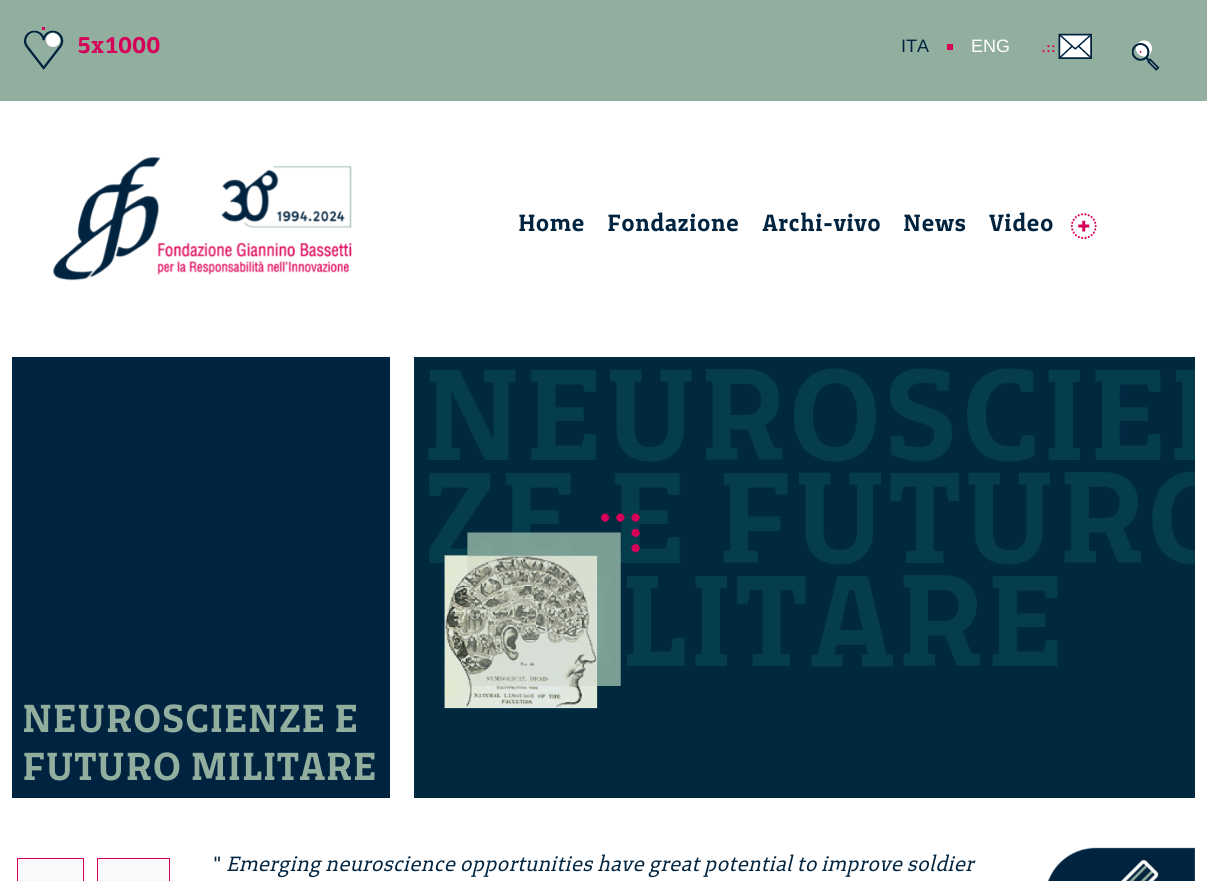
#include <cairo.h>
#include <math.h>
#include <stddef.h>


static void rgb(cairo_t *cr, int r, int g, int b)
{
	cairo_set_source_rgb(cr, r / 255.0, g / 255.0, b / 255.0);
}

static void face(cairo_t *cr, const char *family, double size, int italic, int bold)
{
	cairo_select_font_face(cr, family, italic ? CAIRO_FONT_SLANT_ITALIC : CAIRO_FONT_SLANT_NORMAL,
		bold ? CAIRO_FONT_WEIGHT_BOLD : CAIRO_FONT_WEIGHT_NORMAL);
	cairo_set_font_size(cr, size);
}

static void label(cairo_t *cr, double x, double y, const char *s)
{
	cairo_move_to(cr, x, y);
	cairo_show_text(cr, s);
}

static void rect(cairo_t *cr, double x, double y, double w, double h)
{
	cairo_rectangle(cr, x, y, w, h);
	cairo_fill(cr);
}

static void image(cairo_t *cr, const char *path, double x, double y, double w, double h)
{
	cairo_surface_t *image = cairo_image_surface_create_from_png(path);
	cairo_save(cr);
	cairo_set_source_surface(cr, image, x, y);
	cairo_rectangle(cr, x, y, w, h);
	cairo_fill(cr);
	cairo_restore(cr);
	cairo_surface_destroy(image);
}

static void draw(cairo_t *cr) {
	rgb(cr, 255, 255, 255);
	cairo_paint(cr);
	rgb(cr, 146, 174, 159);
	rect(cr, 0, 0, 1207, 101);
	image(cr, "image0.png", 24, 27, 40, 43);
	face(cr, "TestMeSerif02", 24, 0, 1);
	rgb(cr, 214, 0, 88);
	label(cr, 77, 53, "5x1000");
	face(cr, "Liberation Sans", 18, 0, 0);
	rgb(cr, 0, 36, 64);
	label(cr, 901, 52, "ITA");
	rgb(cr, 214, 0, 88);
	rect(cr, 947, 44, 6, 6);
	rgb(cr, 255, 255, 255);
	label(cr, 971, 52, "ENG");
	image(cr, "image1.png", 1042, 33, 50, 26);
	image(cr, "image2.png", 1132, 40, 28, 31);
	image(cr, "image3.png", 53, 157, 299, 124);
	face(cr, "TestMeSerif02", 24, 0, 1);
	rgb(cr, 0, 36, 64);
	label(cr, 518, 231, "Home");
	label(cr, 607, 231, "Fondazione");
	label(cr, 762, 231, "Archi-vivo");
	label(cr, 903, 231, "News");
	label(cr, 989, 231, "Video");
	image(cr, "image4.png", 1070, 213, 27, 26);
	rect(cr, 12, 357, 378, 441);
	face(cr, "TestMeSerif02", 40, 0, 1);
	rgb(cr, 146, 174, 159);
	label(cr, 22, 732, "NEUROSCIENZE E");
	label(cr, 22, 780, "FUTURO MILITARE");
	image(cr, "image5.png", 414, 357, 781, 441);
	rgb(cr, 248, 249, 250);
	cairo_rectangle(cr, 17.5, 858.5, 66, 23);
	cairo_fill_preserve(cr);
	rgb(cr, 214, 0, 88);
	cairo_set_line_width(cr, 1);
	cairo_stroke(cr);
	rgb(cr, 248, 249, 250);
	cairo_rectangle(cr, 97.5, 858.5, 72, 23);
	cairo_fill_preserve(cr);
	rgb(cr, 214, 0, 88);
	cairo_stroke(cr);
	face(cr, "TestMeSerif02", 20.8, 0, 0);
	rgb(cr, 0, 36, 64);
	label(cr, 213, 871, "\"");
	face(cr, "TestMeSerif02", 20.8, 1, 0);
	label(cr, 226, 871, "Emerging neuroscience opportunities have great potential to improve soldier");
	image(cr, "image6.png", 1048, 847, 147, 34);
}

int main(void) {
	cairo_surface_t *surface = cairo_image_surface_create(CAIRO_FORMAT_RGB24, 1207, 881);
	cairo_t *cr = cairo_create(surface);
	cairo_font_options_t *options = cairo_font_options_create();
	cairo_font_options_set_hint_metrics(options, CAIRO_HINT_METRICS_OFF);
	cairo_font_options_set_hint_style(options, CAIRO_HINT_STYLE_NONE);
	cairo_set_font_options(cr, options);
	cairo_set_miter_limit(cr, 4);
	draw(cr);
	cairo_surface_write_to_png(surface, "render.png");
	cairo_font_options_destroy(options);
	cairo_destroy(cr);
	cairo_surface_destroy(surface);
	return 0;
}
